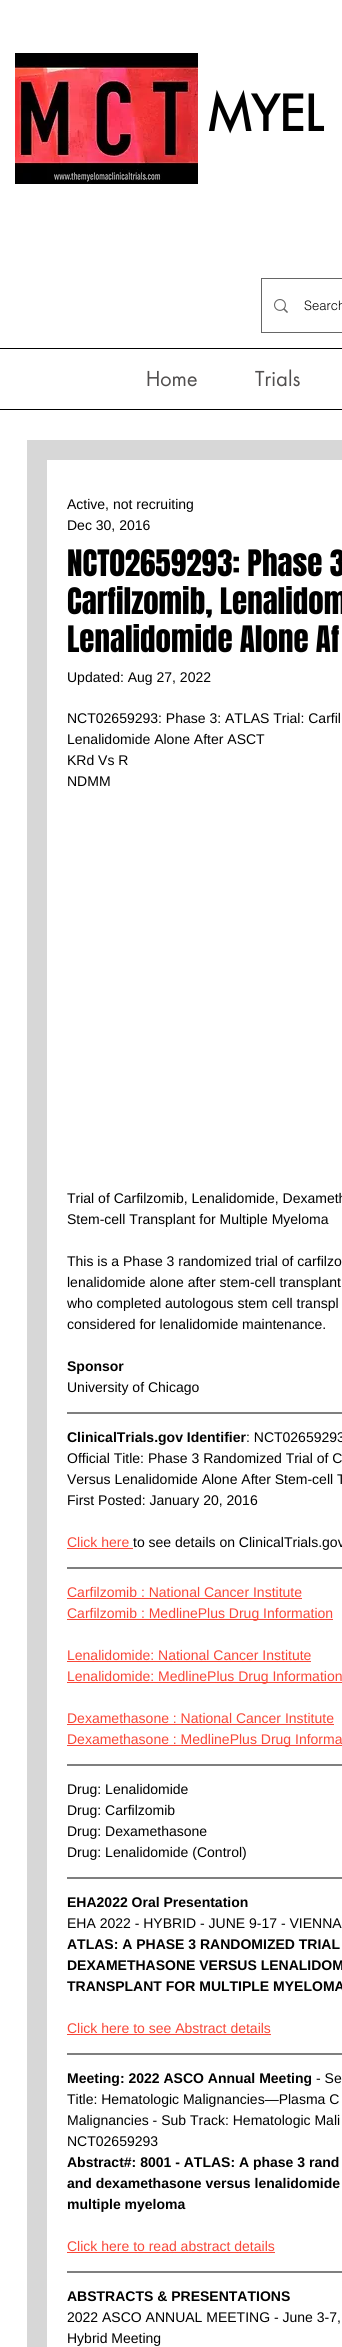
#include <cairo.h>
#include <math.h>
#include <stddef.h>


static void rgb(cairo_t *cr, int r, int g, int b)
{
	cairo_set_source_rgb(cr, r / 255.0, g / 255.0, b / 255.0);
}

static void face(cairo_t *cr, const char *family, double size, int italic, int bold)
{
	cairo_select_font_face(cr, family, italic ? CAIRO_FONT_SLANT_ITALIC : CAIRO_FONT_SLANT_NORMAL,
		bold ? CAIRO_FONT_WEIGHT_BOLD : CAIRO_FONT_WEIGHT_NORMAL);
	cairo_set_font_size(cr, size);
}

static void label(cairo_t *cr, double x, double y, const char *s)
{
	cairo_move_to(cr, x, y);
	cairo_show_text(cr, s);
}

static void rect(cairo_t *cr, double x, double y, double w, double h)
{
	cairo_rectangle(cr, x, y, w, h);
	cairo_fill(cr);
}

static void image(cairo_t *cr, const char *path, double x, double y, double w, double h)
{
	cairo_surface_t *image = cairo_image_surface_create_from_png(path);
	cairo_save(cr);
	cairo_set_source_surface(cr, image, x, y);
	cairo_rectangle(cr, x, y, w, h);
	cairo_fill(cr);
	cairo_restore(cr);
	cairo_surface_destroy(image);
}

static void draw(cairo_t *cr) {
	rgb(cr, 255, 255, 255);
	cairo_paint(cr);
	image(cr, "image0.png", 15, 53, 183, 131);
	face(cr, "futura", 48, 0, 1);
	rgb(cr, 0, 0, 0);
	label(cr, 208, 131, "MYEL");
	cairo_rectangle(cr, 261.5, 278.5, 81, 54);
	rgb(cr, 102, 102, 102);
	cairo_set_line_width(cr, 1);
	cairo_stroke(cr);
	image(cr, "image1.png", 274, 299, 14, 14);
	face(cr, "helvetica Light", 13, 0, 0);
	rgb(cr, 0, 0, 0);
	label(cr, 304, 310, "Search");
	rect(cr, 0, 348, 342, 1);
	rect(cr, 0, 409, 342, 1);
	face(cr, "futura", 20, 0, 0);
	rgb(cr, 81, 79, 79);
	label(cr, 146, 386, "Home");
	label(cr, 255, 386, "Trials");
	rgb(cr, 215, 215, 215);
	rect(cr, 27, 440, 315, 1907);
	rgb(cr, 255, 255, 255);
	rect(cr, 47, 460, 295, 1887);
	face(cr, "Liberation Sans", 14, 0, 0);
	rgb(cr, 0, 0, 0);
	label(cr, 67, 509, "Active, not recruiting");
	label(cr, 67, 530, "Dec 30, 2016");
	face(cr, "Anton", 31, 0, 0);
	label(cr, 67, 576, "NCT02659293: Phase 3");
	label(cr, 67, 614, "Carfilzomib, Lenalidom");
	label(cr, 67, 652, "Lenalidomide Alone Af");
	face(cr, "Liberation Sans", 14, 0, 0);
	label(cr, 67, 682, "Updated: Aug 27, 2022");
	label(cr, 67, 723, "NCT02659293: Phase 3: ATLAS Trial: Carfil");
	label(cr, 67, 744, "Lenalidomide Alone After ASCT");
	label(cr, 67, 765, "KRd Vs R");
	label(cr, 67, 786, "NDMM");
	label(cr, 67, 1203, "Trial of Carfilzomib, Lenalidomide, Dexameth");
	label(cr, 67, 1224, "Stem-cell Transplant for Multiple Myeloma");
	label(cr, 67, 1266, "This is a Phase 3 randomized trial of carfilzo");
	label(cr, 67, 1287, "lenalidomide alone after stem-cell transplant");
	label(cr, 67, 1308, "who completed autologous stem cell transpl");
	label(cr, 67, 1329, "considered for lenalidomide maintenance.");
	face(cr, "Liberation Sans", 14, 0, 1);
	label(cr, 67, 1371, "Sponsor");
	face(cr, "Liberation Sans", 14, 0, 0);
	label(cr, 67, 1392, "University of Chicago");
	cairo_new_path(cr);
	cairo_move_to(cr, 67, 1413);
	cairo_line_to(cr, 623, 1413);
	cairo_stroke(cr);
	face(cr, "Liberation Sans", 14, 0, 1);
	label(cr, 67, 1442, "ClinicalTrials.gov Identifier");
	face(cr, "Liberation Sans", 14, 0, 0);
	label(cr, 246, 1442, ": NCT02659293");
	label(cr, 67, 1463, "Official Title: Phase 3 Randomized Trial of C");
	label(cr, 67, 1484, "Versus Lenalidomide Alone After Stem-cell T");
	label(cr, 67, 1505, "First Posted: January 20, 2016");
	rgb(cr, 248, 71, 56);
	label(cr, 67, 1547, "Click here");
	rect(cr, 67, 1548, 66, 1);
	rgb(cr, 0, 0, 0);
	label(cr, 133, 1547, "to see details on ClinicalTrials.gov");
	cairo_new_path(cr);
	cairo_move_to(cr, 67, 1568);
	cairo_line_to(cr, 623, 1568);
	cairo_stroke(cr);
	rgb(cr, 248, 71, 56);
	label(cr, 67, 1597, "Carfilzomib : National Cancer Institute");
	rect(cr, 67, 1598, 235, 1);
	rect(cr, 67, 1619, 266, 1);
	label(cr, 67, 1618, "Carfilzomib : MedlinePlus Drug Information");
	label(cr, 67, 1660, "Lenalidomide: National Cancer Institute");
	rect(cr, 67, 1661, 244, 1);
	rect(cr, 67, 1682, 275, 1);
	label(cr, 67, 1681, "Lenalidomide: MedlinePlus Drug Information");
	label(cr, 67, 1723, "Dexamethasone : National Cancer Institute");
	rect(cr, 67, 1724, 267, 1);
	rect(cr, 67, 1745, 275, 1);
	label(cr, 67, 1744, "Dexamethasone : MedlinePlus Drug Informa");
	cairo_new_path(cr);
	cairo_move_to(cr, 67, 1765);
	cairo_line_to(cr, 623, 1765);
	rgb(cr, 0, 0, 0);
	cairo_stroke(cr);
	label(cr, 67, 1794, "Drug: Lenalidomide");
	label(cr, 67, 1815, "Drug: Carfilzomib");
	label(cr, 67, 1836, "Drug: Dexamethasone");
	label(cr, 67, 1857, "Drug: Lenalidomide (Control)");
	cairo_new_path(cr);
	cairo_move_to(cr, 67, 1878);
	cairo_line_to(cr, 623, 1878);
	cairo_stroke(cr);
	face(cr, "Liberation Sans", 14, 0, 1);
	label(cr, 67, 1907, "EHA2022 Oral Presentation");
	face(cr, "Liberation Sans", 14, 0, 0);
	label(cr, 67, 1928, "EHA 2022 - HYBRID - JUNE 9-17 - VIENNA");
	face(cr, "Liberation Sans", 14, 0, 1);
	label(cr, 67, 1949, "ATLAS: A PHASE 3 RANDOMIZED TRIAL");
	label(cr, 67, 1970, "DEXAMETHASONE VERSUS LENALIDOM");
	label(cr, 67, 1991, "TRANSPLANT FOR MULTIPLE MYELOMA");
	face(cr, "Liberation Sans", 14, 0, 0);
	rgb(cr, 248, 71, 56);
	label(cr, 67, 2033, "Click here to see Abstract details");
	rect(cr, 67, 2034, 204, 1);
	cairo_new_path(cr);
	cairo_move_to(cr, 67, 2054);
	cairo_line_to(cr, 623, 2054);
	rgb(cr, 0, 0, 0);
	cairo_stroke(cr);
	face(cr, "Liberation Sans", 14, 0, 1);
	label(cr, 67, 2083, "Meeting: 2022 ASCO Annual Meeting");
	face(cr, "Liberation Sans", 14, 0, 0);
	label(cr, 316, 2083, "- Se");
	label(cr, 67, 2104, "Title: Hematologic Malignancies—Plasma C");
	label(cr, 67, 2125, "Malignancies - Sub Track: Hematologic Mali");
	label(cr, 67, 2146, "NCT02659293");
	face(cr, "Liberation Sans", 14, 0, 1);
	label(cr, 67, 2167, "Abstract#: 8001 - ATLAS: A phase 3 rand");
	label(cr, 67, 2188, "and dexamethasone versus lenalidomide");
	label(cr, 67, 2209, "multiple myeloma");
	face(cr, "Liberation Sans", 14, 0, 0);
	rgb(cr, 248, 71, 56);
	label(cr, 67, 2251, "Click here to read abstract details");
	rect(cr, 67, 2252, 208, 1);
	cairo_new_path(cr);
	cairo_move_to(cr, 67, 2272);
	cairo_line_to(cr, 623, 2272);
	rgb(cr, 0, 0, 0);
	cairo_stroke(cr);
	face(cr, "Liberation Sans", 14, 0, 1);
	label(cr, 67, 2301, "ABSTRACTS & PRESENTATIONS");
	face(cr, "Liberation Sans", 14, 0, 0);
	label(cr, 67, 2322, "2022 ASCO ANNUAL MEETING - June 3-7,");
	label(cr, 67, 2343, "Hybrid Meeting");
}

int main(void) {
	cairo_surface_t *surface = cairo_image_surface_create(CAIRO_FORMAT_RGB24, 342, 2347);
	cairo_t *cr = cairo_create(surface);
	cairo_font_options_t *options = cairo_font_options_create();
	cairo_font_options_set_hint_metrics(options, CAIRO_HINT_METRICS_OFF);
	cairo_font_options_set_hint_style(options, CAIRO_HINT_STYLE_NONE);
	cairo_set_font_options(cr, options);
	cairo_set_miter_limit(cr, 4);
	draw(cr);
	cairo_surface_write_to_png(surface, "render.png");
	cairo_font_options_destroy(options);
	cairo_destroy(cr);
	cairo_surface_destroy(surface);
	return 0;
}
